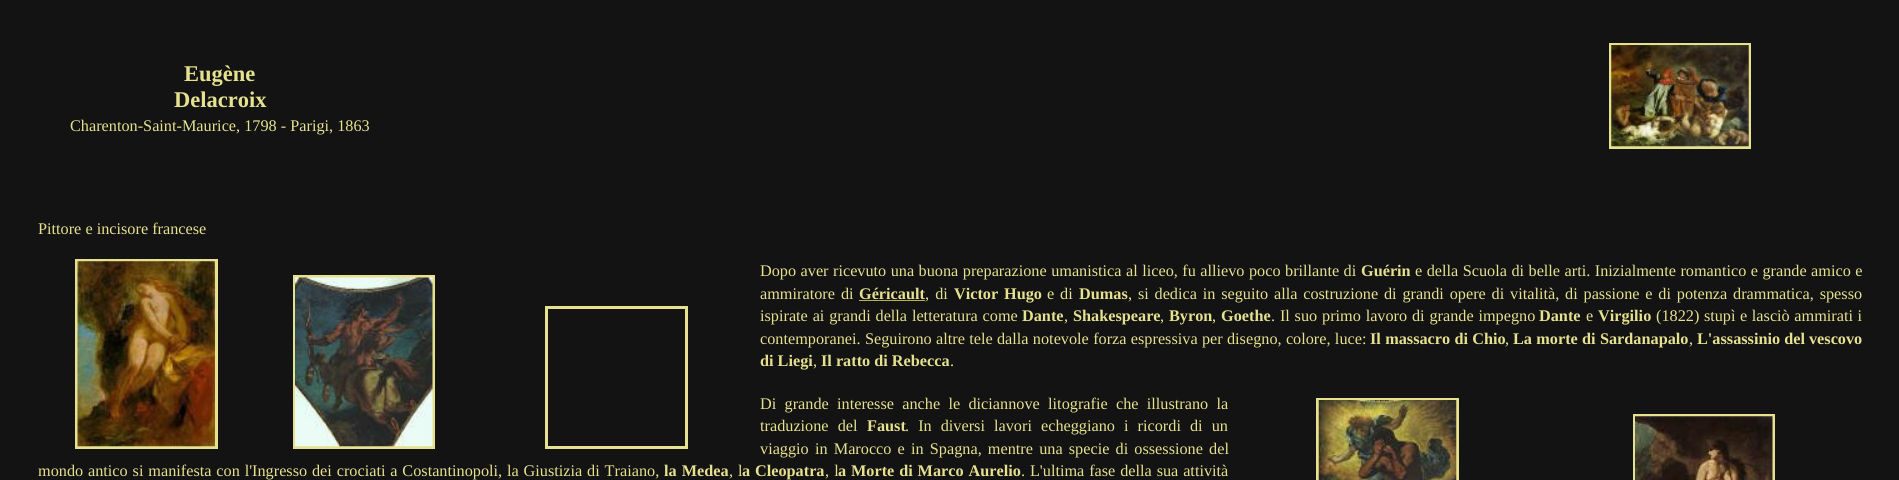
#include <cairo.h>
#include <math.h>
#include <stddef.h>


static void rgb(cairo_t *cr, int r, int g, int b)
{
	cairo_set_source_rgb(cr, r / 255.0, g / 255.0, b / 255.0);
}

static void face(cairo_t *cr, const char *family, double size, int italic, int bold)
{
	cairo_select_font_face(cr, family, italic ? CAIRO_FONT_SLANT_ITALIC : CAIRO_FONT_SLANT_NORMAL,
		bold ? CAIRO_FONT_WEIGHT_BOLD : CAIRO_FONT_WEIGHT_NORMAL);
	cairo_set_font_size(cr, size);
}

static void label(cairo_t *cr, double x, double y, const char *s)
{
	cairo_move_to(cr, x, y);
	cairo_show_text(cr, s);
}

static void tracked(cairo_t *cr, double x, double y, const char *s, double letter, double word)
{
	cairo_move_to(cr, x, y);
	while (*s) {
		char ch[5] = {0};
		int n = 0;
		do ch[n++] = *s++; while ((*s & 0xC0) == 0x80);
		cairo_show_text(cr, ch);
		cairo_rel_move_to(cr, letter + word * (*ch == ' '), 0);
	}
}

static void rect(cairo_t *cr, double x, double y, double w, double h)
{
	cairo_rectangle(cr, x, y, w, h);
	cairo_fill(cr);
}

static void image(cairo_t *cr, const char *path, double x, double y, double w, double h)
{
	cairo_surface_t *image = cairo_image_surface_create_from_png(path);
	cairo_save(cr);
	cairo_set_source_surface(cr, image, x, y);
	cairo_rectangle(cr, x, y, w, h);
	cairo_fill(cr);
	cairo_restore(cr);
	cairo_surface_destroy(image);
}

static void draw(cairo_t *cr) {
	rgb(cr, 19, 19, 19);
	cairo_paint(cr);
	face(cr, "Liberation Serif", 22.5, 0, 1);
	rgb(cr, 230, 225, 142);
	label(cr, 184, 81, "Eugène");
	label(cr, 174, 107, "Delacroix");
	face(cr, "Liberation Serif", 16.25, 0, 0);
	label(cr, 70, 131, "Charenton-Saint-Maurice, 1798 - Parigi, 1863");
	cairo_rectangle(cr, 1610.5, 44.5, 139, 103);
	cairo_set_line_width(cr, 3);
	cairo_stroke(cr);
	image(cr, "image0.png", 1611, 45, 138, 102);
	label(cr, 38, 234, "Pittore e incisore francese");
	cairo_rectangle(cr, 76.5, 260.5, 140, 187);
	cairo_stroke(cr);
	image(cr, "image1.png", 77, 261, 138, 186);
	cairo_rectangle(cr, 294.5, 276.5, 139, 171);
	cairo_stroke(cr);
	image(cr, "image2.png", 295, 277, 138, 170);
	cairo_rectangle(cr, 546.5, 307.5, 140, 140);
	cairo_stroke(cr);
	tracked(cr, 760, 276, "Dopo aver ricevuto una buona preparazione umanistica al liceo, fu allievo poco brillante di", 0, 0.4);
	face(cr, "Liberation Serif", 16.25, 0, 1);
	label(cr, 1361, 276, "Guérin");
	face(cr, "Liberation Serif", 16.25, 0, 0);
	tracked(cr, 1415, 276, "e della Scuola di belle arti. Inizialmente romantico e grande amico e", 0, 0.4);
	tracked(cr, 760, 299, "ammiratore di", 0, 2);
	face(cr, "Liberation Serif", 16.25, 0, 1);
	label(cr, 859, 299, "Géricault");
	face(cr, "Liberation Serif", 16.25, 0, 0);
	tracked(cr, 925, 299, ", di", 0, 2);
	rgb(cr, 182, 176, 77);
	rect(cr, 859, 300, 66, 1);
	face(cr, "Liberation Serif", 16.25, 0, 1);
	rgb(cr, 230, 225, 142);
	tracked(cr, 954, 299, "Victor Hugo", 0, 1.75);
	face(cr, "Liberation Serif", 16.25, 0, 0);
	tracked(cr, 1047, 299, "e di", 0, 1.75);
	face(cr, "Liberation Serif", 16.25, 0, 1);
	label(cr, 1079, 299, "Dumas");
	face(cr, "Liberation Serif", 16.25, 0, 0);
	tracked(cr, 1128, 299, ", si dedica in seguito alla costruzione di grandi opere di vitalità, di passione e di potenza drammatica, spesso", 0, 1.75);
	tracked(cr, 760, 321, "ispirate ai grandi della letteratura come", 0, 0.75);
	face(cr, "Liberation Serif", 16.25, 0, 1);
	label(cr, 1022, 321, "Dante");
	face(cr, "Liberation Serif", 16.25, 0, 0);
	label(cr, 1064, 321, ",");
	face(cr, "Liberation Serif", 16.25, 0, 1);
	label(cr, 1073, 321, "Shakespeare");
	face(cr, "Liberation Serif", 16.25, 0, 0);
	label(cr, 1160, 321, ",");
	face(cr, "Liberation Serif", 16.25, 0, 1);
	label(cr, 1169, 321, "Byron");
	face(cr, "Liberation Serif", 16.25, 0, 0);
	label(cr, 1212, 321, ",");
	face(cr, "Liberation Serif", 16.25, 0, 1);
	label(cr, 1221, 321, "Goethe");
	face(cr, "Liberation Serif", 16.25, 0, 0);
	tracked(cr, 1271, 321, ". Il suo primo lavoro di grande impegno", 0, 0.75);
	face(cr, "Liberation Serif", 16.25, 0, 1);
	label(cr, 1539, 321, "Dante");
	face(cr, "Liberation Serif", 16.25, 0, 0);
	label(cr, 1586, 321, "e");
	face(cr, "Liberation Serif", 16.25, 0, 1);
	label(cr, 1598, 321, "Virgilio");
	face(cr, "Liberation Serif", 16.25, 0, 0);
	tracked(cr, 1656, 321, "(1822) stupì e lasciò ammirati i", 0, 0.5);
	tracked(cr, 760, 344, "contemporanei. Seguirono altre tele dalla notevole forza espressiva per disegno, colore, luce:", 0, 0.25);
	face(cr, "Liberation Serif", 16.25, 0, 1);
	tracked(cr, 1370, 344, "Il massacro di Chio", 0, 0.25);
	face(cr, "Liberation Serif", 16.25, 0, 0);
	label(cr, 1505, 344, ",");
	face(cr, "Liberation Serif", 16.25, 0, 1);
	tracked(cr, 1513, 344, "La morte di Sardanapalo", 0, 0.25);
	face(cr, "Liberation Serif", 16.25, 0, 0);
	label(cr, 1689, 344, ",");
	face(cr, "Liberation Serif", 16.25, 0, 1);
	label(cr, 1697, 344, "L'assassinio del vescovo");
	label(cr, 760, 366, "di Liegi");
	face(cr, "Liberation Serif", 16.25, 0, 0);
	label(cr, 813, 366, ",");
	face(cr, "Liberation Serif", 16.25, 0, 1);
	label(cr, 821, 366, "Il ratto di Rebecca");
	face(cr, "Liberation Serif", 16.25, 0, 0);
	label(cr, 950, 366, ".");
	tracked(cr, 760, 409, "Di grande interesse anche le diciannove litografie che illustrano la", 0, 4.25);
	tracked(cr, 760, 431, "traduzione del", 0, 5);
	face(cr, "Liberation Serif", 16.25, 0, 1);
	label(cr, 867, 431, "Faust");
	face(cr, "Liberation Serif", 16.25, 0, 0);
	tracked(cr, 905, 431, ". In diversi lavori echeggiano i ricordi di un", 0, 5);
	tracked(cr, 760, 454, "viaggio in Marocco e in Spagna, mentre una specie di ossessione del", 0, 2.1);
	tracked(cr, 38, 476, "mondo antico si manifesta con l'Ingresso dei crociati a Costantinopoli, la Giustizia di Traiano,", 0, 0.8);
	face(cr, "Liberation Serif", 16.25, 0, 1);
	tracked(cr, 664, 476, "la Medea", 0, 1);
	face(cr, "Liberation Serif", 16.25, 1, 0);
	label(cr, 729, 476, ",");
	face(cr, "Liberation Serif", 16.25, 0, 0);
	label(cr, 738, 476, "l");
	face(cr, "Liberation Serif", 16.25, 0, 1);
	tracked(cr, 742, 476, "a Cleopatra", 0, 0.8);
	face(cr, "Liberation Serif", 16.25, 0, 0);
	tracked(cr, 825, 476, ", l", 0, 1);
	face(cr, "Liberation Serif", 16.25, 0, 1);
	tracked(cr, 838, 476, "a Morte di Marco Aurelio", 0, 0.8);
	face(cr, "Liberation Serif", 16.25, 0, 0);
	tracked(cr, 1021, 476, ". L'ultima fase della sua attività", 0, 0.8);
	cairo_rectangle(cr, 1317.5, 399.5, 140, 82);
	cairo_stroke(cr);
	image(cr, "image3.png", 1318, 400, 139, 80);
	cairo_rectangle(cr, 1634.5, 415.5, 139, 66);
	cairo_stroke(cr);
	image(cr, "image4.png", 1635, 416, 138, 64);
}

int main(void) {
	cairo_surface_t *surface = cairo_image_surface_create(CAIRO_FORMAT_RGB24, 1899, 480);
	cairo_t *cr = cairo_create(surface);
	cairo_font_options_t *options = cairo_font_options_create();
	cairo_font_options_set_hint_metrics(options, CAIRO_HINT_METRICS_OFF);
	cairo_font_options_set_hint_style(options, CAIRO_HINT_STYLE_NONE);
	cairo_set_font_options(cr, options);
	cairo_set_miter_limit(cr, 4);
	draw(cr);
	cairo_surface_write_to_png(surface, "render.png");
	cairo_font_options_destroy(options);
	cairo_destroy(cr);
	cairo_surface_destroy(surface);
	return 0;
}
